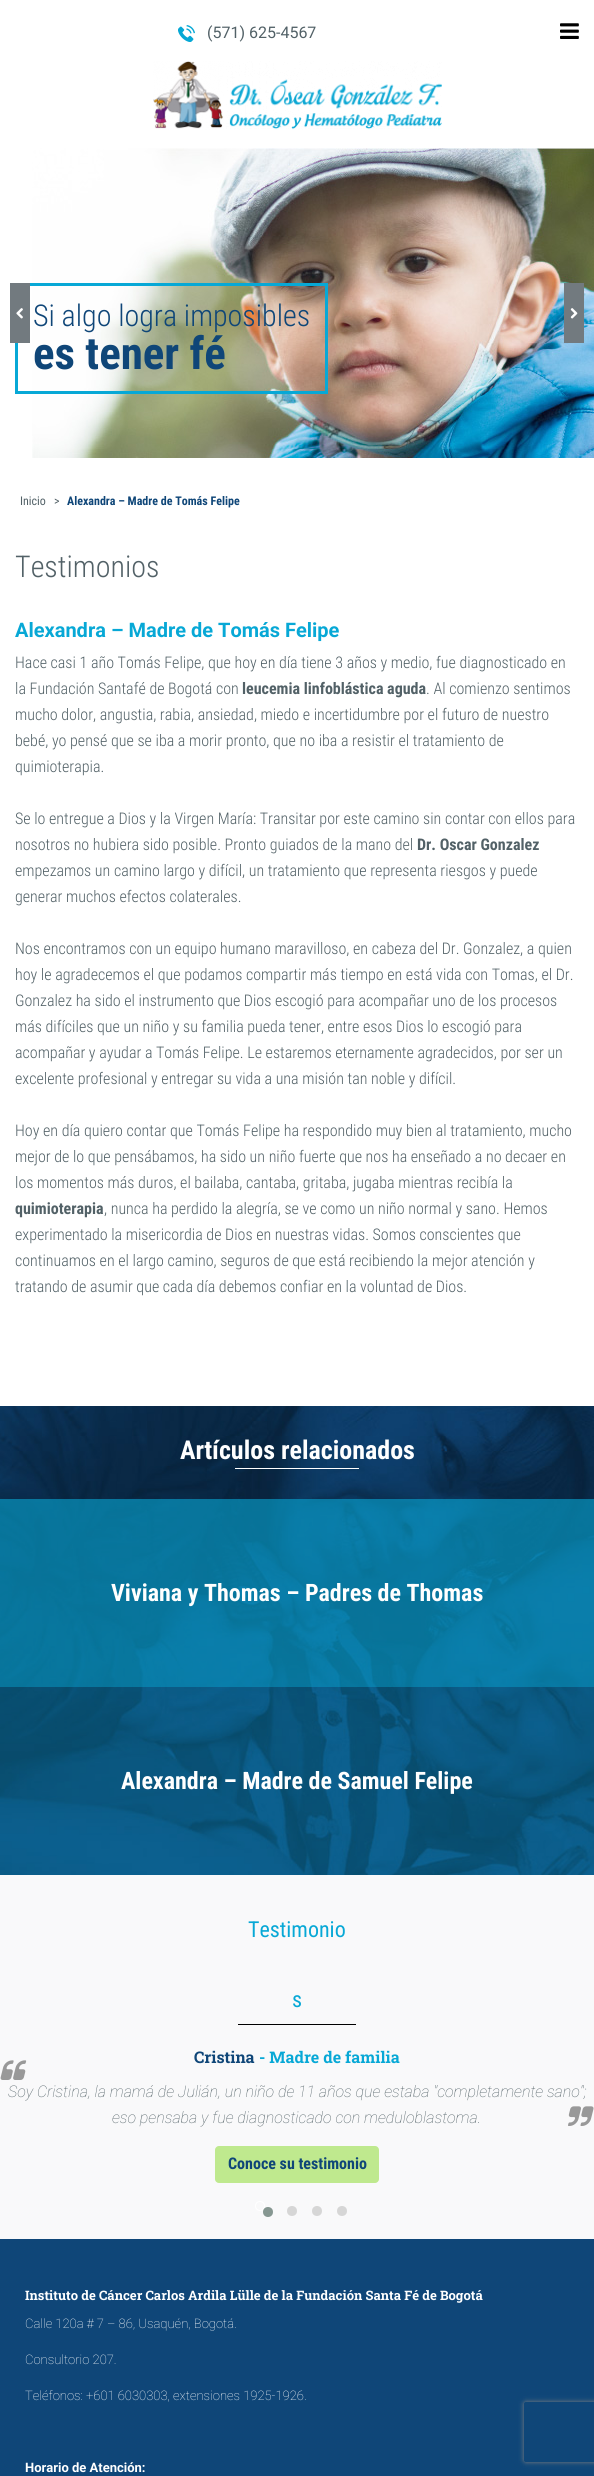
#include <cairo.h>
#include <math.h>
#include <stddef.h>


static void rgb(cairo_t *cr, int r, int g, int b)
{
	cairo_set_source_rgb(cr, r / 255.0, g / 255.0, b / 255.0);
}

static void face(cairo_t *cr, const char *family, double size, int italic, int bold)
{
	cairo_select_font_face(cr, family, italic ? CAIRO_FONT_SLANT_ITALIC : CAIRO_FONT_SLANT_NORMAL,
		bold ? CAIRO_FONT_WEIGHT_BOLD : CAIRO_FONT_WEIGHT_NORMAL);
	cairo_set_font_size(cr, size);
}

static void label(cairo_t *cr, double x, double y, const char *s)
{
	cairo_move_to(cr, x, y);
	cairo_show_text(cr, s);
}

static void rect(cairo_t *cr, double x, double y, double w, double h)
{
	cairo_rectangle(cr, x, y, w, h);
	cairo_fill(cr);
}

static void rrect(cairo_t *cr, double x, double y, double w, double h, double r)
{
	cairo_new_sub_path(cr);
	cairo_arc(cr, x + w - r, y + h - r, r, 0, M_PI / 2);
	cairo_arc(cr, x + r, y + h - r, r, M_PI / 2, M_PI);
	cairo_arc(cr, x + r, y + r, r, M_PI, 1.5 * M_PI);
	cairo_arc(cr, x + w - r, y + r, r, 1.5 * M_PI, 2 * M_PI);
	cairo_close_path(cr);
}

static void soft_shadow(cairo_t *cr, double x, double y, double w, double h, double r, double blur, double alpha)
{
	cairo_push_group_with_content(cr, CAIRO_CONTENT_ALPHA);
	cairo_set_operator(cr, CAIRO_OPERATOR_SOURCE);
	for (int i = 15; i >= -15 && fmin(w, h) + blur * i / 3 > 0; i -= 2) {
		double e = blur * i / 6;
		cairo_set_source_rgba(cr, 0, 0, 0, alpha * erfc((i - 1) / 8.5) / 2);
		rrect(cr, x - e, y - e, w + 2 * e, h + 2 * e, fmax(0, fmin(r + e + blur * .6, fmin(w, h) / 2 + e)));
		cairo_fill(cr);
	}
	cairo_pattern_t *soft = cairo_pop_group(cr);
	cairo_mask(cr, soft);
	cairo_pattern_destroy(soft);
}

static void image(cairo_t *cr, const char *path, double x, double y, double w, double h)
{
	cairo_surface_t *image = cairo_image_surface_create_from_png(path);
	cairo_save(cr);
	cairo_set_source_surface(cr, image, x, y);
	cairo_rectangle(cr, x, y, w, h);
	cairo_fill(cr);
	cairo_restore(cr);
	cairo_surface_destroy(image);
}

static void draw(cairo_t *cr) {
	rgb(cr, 255, 255, 255);
	cairo_paint(cr);
	image(cr, "image0.png", 178, 25, 17, 17);
	face(cr, "Roboto", 16, 0, 0);
	rgb(cr, 82, 97, 103);
	label(cr, 207, 38, "(571) 625-4567");
	image(cr, "image1.png", 560, 23, 19, 16);
	image(cr, "image2.png", 153, 61, 289, 69);
	image(cr, "image5.png", 32, 148, 562, 310);
	cairo_rectangle(cr, 16.5, 284.5, 310, 108);
	rgb(cr, 7, 168, 214);
	cairo_set_line_width(cr, 3);
	cairo_stroke(cr);
	rgb(cr, 114, 122, 127);
	rect(cr, 10, 283, 20, 60);
	image(cr, "image3.png", 16, 308, 7, 11);
	rect(cr, 564, 283, 20, 60);
	image(cr, "image4.png", 570, 308, 8, 11);
	face(cr, "Roboto Condensed Light", 30, 0, 0);
	rgb(cr, 15, 70, 120);
	label(cr, 33, 326, "Si algo logra imposibles");
	face(cr, "Roboto Condensed", 45, 0, 1);
	label(cr, 33, 369, "es tener fé");
	face(cr, "Roboto Condensed", 12, 0, 0);
	rgb(cr, 82, 97, 103);
	label(cr, 20, 505, "Inicio");
	label(cr, 54, 505, ">");
	face(cr, "Roboto Condensed", 12, 0, 1);
	rgb(cr, 15, 70, 120);
	label(cr, 67, 505, "Alexandra – Madre de Tomás Felipe");
	face(cr, "Roboto Condensed Light", 30, 0, 0);
	rgb(cr, 82, 97, 103);
	label(cr, 15, 577, "Testimonios");
	face(cr, "Roboto", 20, 0, 1);
	rgb(cr, 7, 168, 214);
	label(cr, 15, 637, "Alexandra – Madre de Tomás Felipe");
	face(cr, "Roboto Condensed Light", 16, 0, 0);
	rgb(cr, 82, 97, 103);
	label(cr, 15, 668, "Hace casi 1 año Tomás Felipe, que hoy en día tiene 3 años y medio, fue diagnosticado en");
	label(cr, 15, 694, "la Fundación Santafé de Bogotá con");
	face(cr, "Roboto Condensed", 16, 0, 1);
	label(cr, 242, 694, "leucemia linfoblástica aguda");
	face(cr, "Roboto Condensed Light", 16, 0, 0);
	label(cr, 426, 694, ". Al comienzo sentimos");
	label(cr, 15, 720, "mucho dolor, angustia, rabia, ansiedad, miedo e incertidumbre por el futuro de nuestro");
	label(cr, 15, 746, "bebé, yo pensé que se iba a morir pronto, que no iba a resistir el tratamiento de");
	label(cr, 15, 772, "quimioterapia.");
	label(cr, 15, 824, "Se lo entregue a Dios y la Virgen María: Transitar por este camino sin contar con ellos para");
	label(cr, 15, 850, "nosotros no hubiera sido posible. Pronto guiados de la mano del");
	face(cr, "Roboto Condensed", 16, 0, 1);
	label(cr, 417, 850, "Dr. Oscar Gonzalez");
	face(cr, "Roboto Condensed Light", 16, 0, 0);
	label(cr, 15, 876, "empezamos un camino largo y difícil, un tratamiento que representa riesgos y puede");
	label(cr, 15, 902, "generar muchos efectos colaterales.");
	label(cr, 15, 954, "Nos encontramos con un equipo humano maravilloso, en cabeza del Dr. Gonzalez, a quien");
	label(cr, 15, 980, "hoy le agradecemos el que podamos compartir más tiempo en está vida con Tomas, el Dr.");
	label(cr, 15, 1006, "Gonzalez ha sido el instrumento que Dios escogió para acompañar uno de los procesos");
	label(cr, 15, 1032, "más difíciles que un niño y su familia pueda tener, entre esos Dios lo escogió para");
	label(cr, 15, 1058, "acompañar y ayudar a Tomás Felipe. Le estaremos eternamente agradecidos, por ser un");
	label(cr, 15, 1084, "excelente profesional y entregar su vida a una misión tan noble y difícil.");
	label(cr, 15, 1136, "Hoy en día quiero contar que Tomás Felipe ha respondido muy bien al tratamiento, mucho");
	label(cr, 15, 1162, "mejor de lo que pensábamos, ha sido un niño fuerte que nos ha enseñado a no decaer en");
	label(cr, 15, 1188, "los momentos más duros, el bailaba, cantaba, gritaba, jugaba mientras recibía la");
	face(cr, "Roboto Condensed", 16, 0, 1);
	label(cr, 15, 1214, "quimioterapia");
	face(cr, "Roboto Condensed Light", 16, 0, 0);
	label(cr, 104, 1214, ", nunca ha perdido la alegría, se ve como un niño normal y sano. Hemos");
	label(cr, 15, 1240, "experimentado la misericordia de Dios en nuestras vidas. Somos conscientes que");
	label(cr, 15, 1266, "continuamos en el largo camino, seguros de que está recibiendo la mejor atención y");
	label(cr, 15, 1292, "tratando de asumir que cada día debemos confiar en la voluntad de Dios.");
	image(cr, "image6.png", 0, 1406, 594, 469);
	face(cr, "Roboto Condensed", 26, 0, 1);
	rgb(cr, 255, 255, 255);
	label(cr, 180, 1459, "Artículos relacionados");
	rect(cr, 235, 1468, 124, 1);
	cairo_set_source_rgba(cr, 0.027, 0.659, 0.839, 0.6);
	rect(cr, 0, 1499, 594, 188);
	face(cr, "Roboto Condensed", 24, 0, 1);
	rgb(cr, 255, 255, 255);
	label(cr, 111, 1601, "Viviana y Thomas – Padres de Thomas");
	cairo_set_source_rgba(cr, 0.027, 0.659, 0.839, 0.3);
	rect(cr, 0, 1687, 594, 188);
	rgb(cr, 255, 255, 255);
	label(cr, 121, 1789, "Alexandra – Madre de Samuel Felipe");
	rgb(cr, 249, 249, 250);
	rect(cr, 0, 1875, 594, 364);
	face(cr, "Roboto Condensed", 22, 0, 0);
	rgb(cr, 7, 168, 214);
	label(cr, 248, 1937, "Testimonio");
	label(cr, 292, 2007, "s");
	rgb(cr, 0, 0, 0);
	rect(cr, 238, 2024, 118, 1);
	face(cr, "Roboto Slab", 16, 0, 1);
	rgb(cr, 15, 70, 120);
	label(cr, 194, 2063, "Cristina");
	rgb(cr, 7, 168, 214);
	label(cr, 259, 2063, "- Madre de familia");
	image(cr, "image7.png", 0, 2060, 27, 20);
	face(cr, "Roboto Thin", 16, 1, 0);
	rgb(cr, 82, 97, 103);
	label(cr, 8, 2097, "Soy Cristina, la mamá de Julián, un niño de 11 años que estaba \"completamente sano\";");
	label(cr, 112, 2123, "eso pensaba y fue diagnosticado con meduloblastoma.");
	image(cr, "image8.png", 568, 2106, 26, 20);
	rgb(cr, 191, 233, 142);
	rrect(cr, 215, 2146, 164, 37, 4);
	cairo_fill(cr);
	face(cr, "Roboto Condensed", 16, 0, 1);
	rgb(cr, 15, 70, 120);
	label(cr, 228, 2169, "Conoce su testimonio");
	cairo_new_path(cr);
	cairo_arc(cr, 260, 2206, 4.5, 0, 2 * M_PI);
	rgb(cr, 255, 255, 255);
	cairo_set_line_width(cr, 1);
	cairo_stroke(cr);
	rgb(cr, 134, 151, 145);
	cairo_arc(cr, 268, 2212, 5, 0, 2 * M_PI);
	cairo_fill(cr);
	rgb(cr, 214, 214, 214);
	cairo_arc(cr, 292, 2211, 5, 0, 2 * M_PI);
	cairo_fill(cr);
	cairo_arc(cr, 317, 2211, 5, 0, 2 * M_PI);
	cairo_fill(cr);
	cairo_arc(cr, 342, 2211, 5, 0, 2 * M_PI);
	cairo_fill(cr);
	rgb(cr, 15, 70, 120);
	rect(cr, 0, 2239, 594, 237);
	face(cr, "Roboto Slab", 13, 0, 1);
	rgb(cr, 255, 255, 255);
	label(cr, 25, 2300, "Instituto de Cáncer Carlos Ardila Lülle de la Fundación Santa Fé de Bogotá");
	face(cr, "Roboto Thin", 13, 0, 0);
	label(cr, 25, 2328, "Calle 120a # 7 – 86, Usaquén, Bogotá.");
	label(cr, 25, 2364, "Consultorio 207.");
	label(cr, 25, 2400, "Teléfonos: +601 6030303, extensiones 1925-1926.");
	face(cr, "Roboto", 13, 0, 1);
	label(cr, 25, 2472, "Horario de Atención:");
	cairo_save(cr);
	cairo_set_fill_rule(cr, CAIRO_FILL_RULE_EVEN_ODD);
	cairo_new_path(cr);
	cairo_move_to(cr, 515, 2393);
	cairo_line_to(cr, 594, 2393);
	cairo_line_to(cr, 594, 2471);
	cairo_line_to(cr, 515, 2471);
	cairo_close_path(cr);
	cairo_move_to(cr, 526, 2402);
	cairo_line_to(cr, 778, 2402);
	cairo_curve_to(cr, 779, 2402, 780, 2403, 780, 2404);
	cairo_line_to(cr, 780, 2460);
	cairo_curve_to(cr, 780, 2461, 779, 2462, 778, 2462);
	cairo_line_to(cr, 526, 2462);
	cairo_curve_to(cr, 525, 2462, 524, 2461, 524, 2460);
	cairo_line_to(cr, 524, 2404);
	cairo_curve_to(cr, 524, 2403, 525, 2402, 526, 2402);
	cairo_close_path(cr);
	cairo_clip(cr);
	rgb(cr, 128, 128, 128);
	soft_shadow(cr, 524, 2402, 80, 60, 2, 2.5, 1);
	cairo_restore(cr);
}

int main(void) {
	cairo_surface_t *surface = cairo_image_surface_create(CAIRO_FORMAT_RGB24, 594, 2476);
	cairo_t *cr = cairo_create(surface);
	cairo_font_options_t *options = cairo_font_options_create();
	cairo_font_options_set_hint_metrics(options, CAIRO_HINT_METRICS_OFF);
	cairo_font_options_set_hint_style(options, CAIRO_HINT_STYLE_NONE);
	cairo_set_font_options(cr, options);
	cairo_set_miter_limit(cr, 4);
	draw(cr);
	cairo_surface_write_to_png(surface, "render.png");
	cairo_font_options_destroy(options);
	cairo_destroy(cr);
	cairo_surface_destroy(surface);
	return 0;
}
